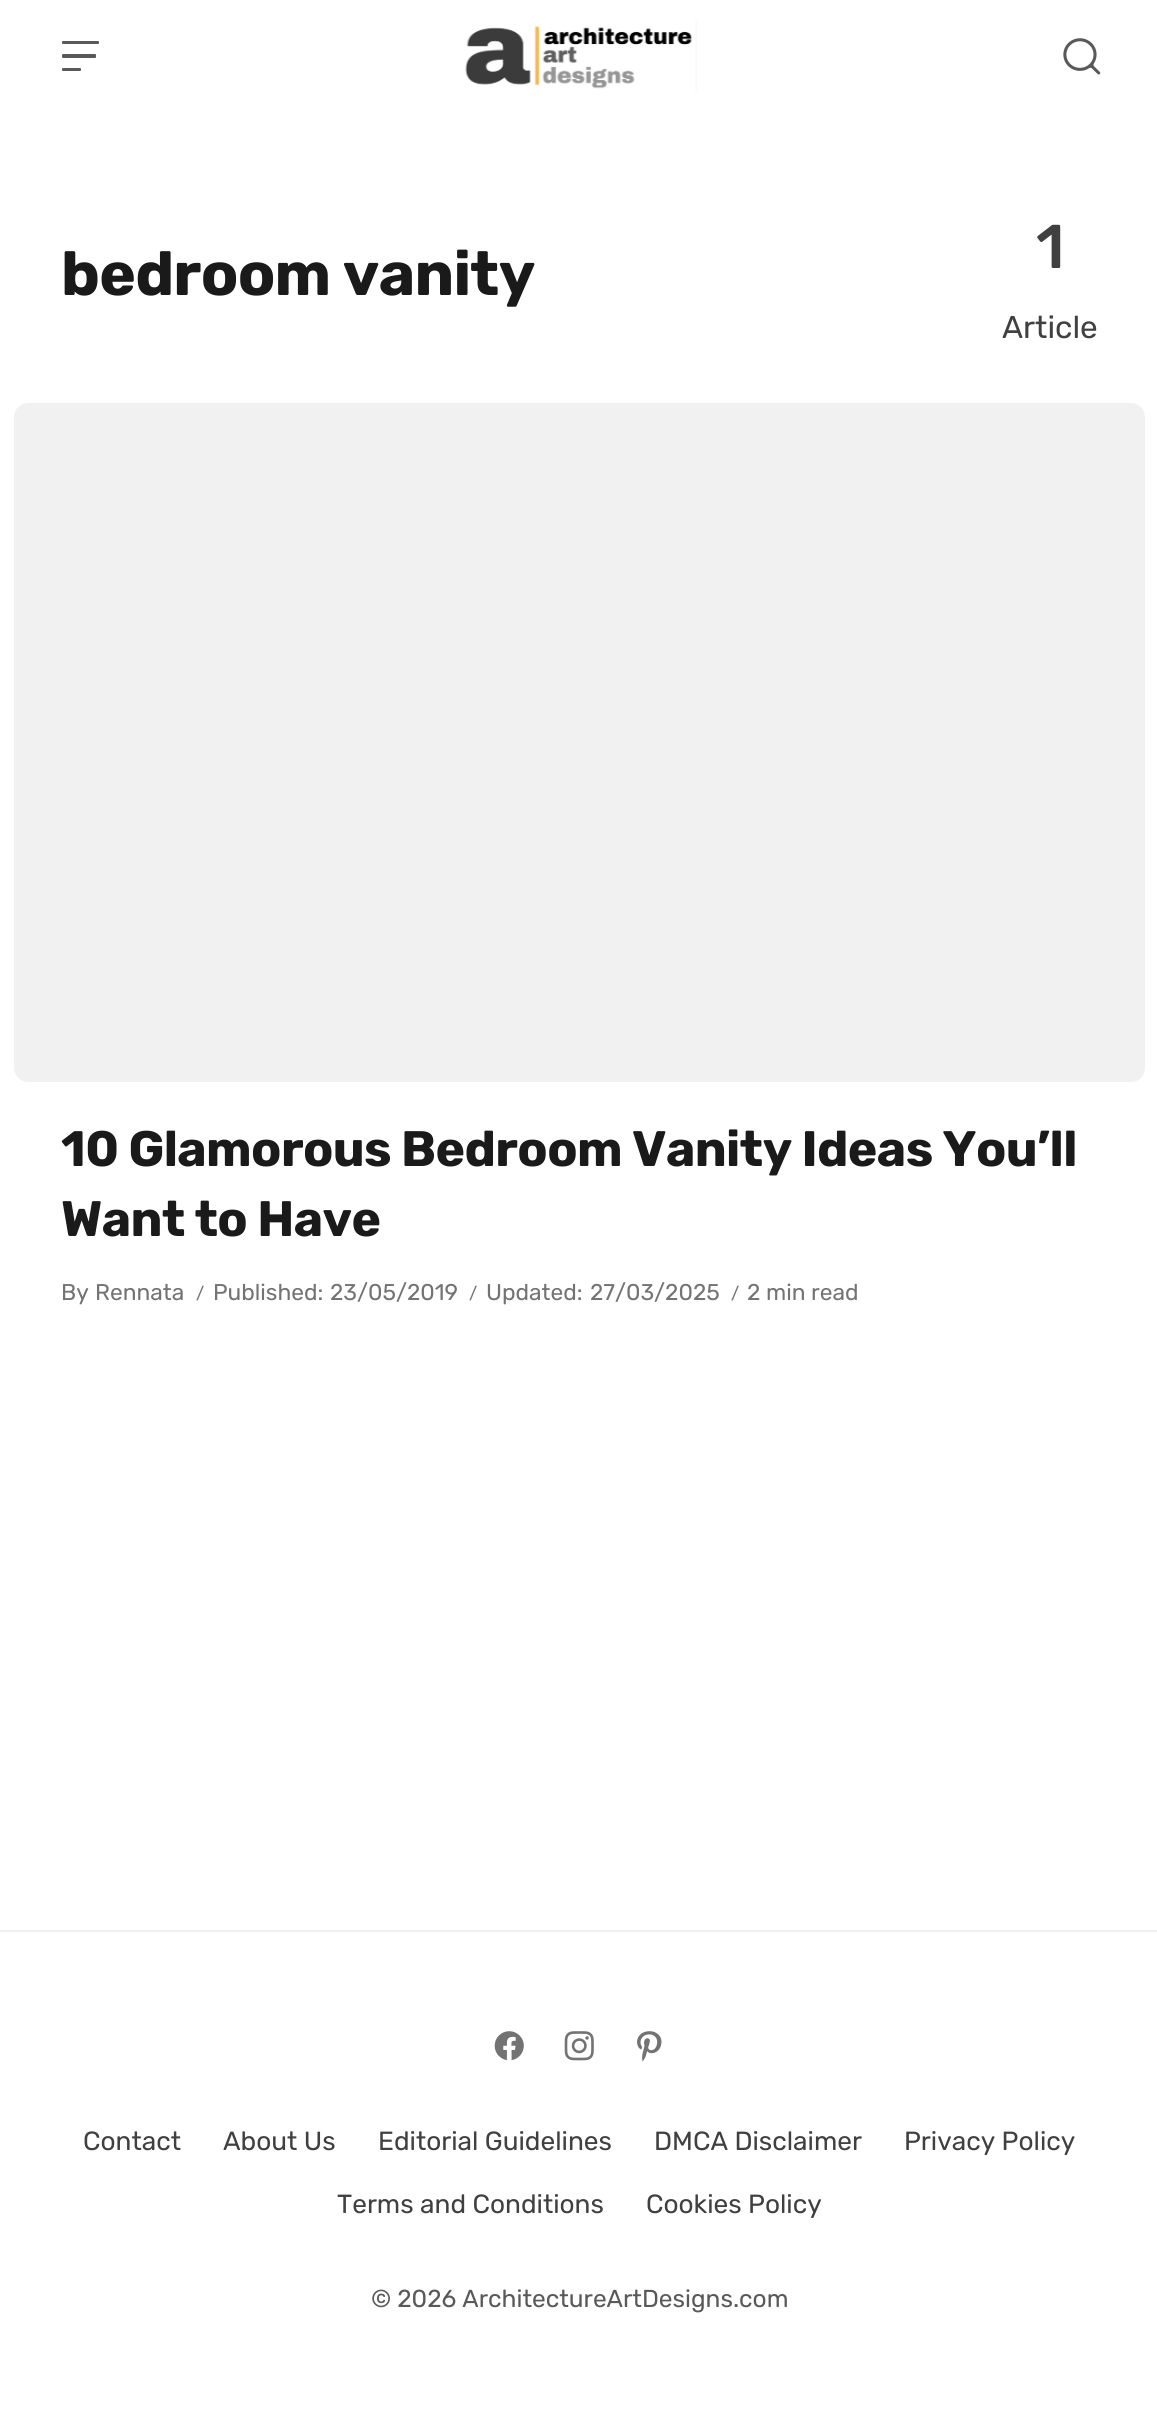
#include <cairo.h>
#include <math.h>
#include <stddef.h>


static void rgb(cairo_t *cr, int r, int g, int b)
{
	cairo_set_source_rgb(cr, r / 255.0, g / 255.0, b / 255.0);
}

static void face(cairo_t *cr, const char *family, double size, int italic, int bold)
{
	cairo_select_font_face(cr, family, italic ? CAIRO_FONT_SLANT_ITALIC : CAIRO_FONT_SLANT_NORMAL,
		bold ? CAIRO_FONT_WEIGHT_BOLD : CAIRO_FONT_WEIGHT_NORMAL);
	cairo_set_font_size(cr, size);
}

static void label(cairo_t *cr, double x, double y, const char *s)
{
	cairo_move_to(cr, x, y);
	cairo_show_text(cr, s);
}

static void tracked(cairo_t *cr, double x, double y, const char *s, double letter, double word)
{
	cairo_move_to(cr, x, y);
	while (*s) {
		char ch[5] = {0};
		int n = 0;
		do ch[n++] = *s++; while ((*s & 0xC0) == 0x80);
		cairo_show_text(cr, ch);
		cairo_rel_move_to(cr, letter + word * (*ch == ' '), 0);
	}
}

static void rect(cairo_t *cr, double x, double y, double w, double h)
{
	cairo_rectangle(cr, x, y, w, h);
	cairo_fill(cr);
}

static void rrect(cairo_t *cr, double x, double y, double w, double h, double r)
{
	cairo_new_sub_path(cr);
	cairo_arc(cr, x + w - r, y + h - r, r, 0, M_PI / 2);
	cairo_arc(cr, x + r, y + h - r, r, M_PI / 2, M_PI);
	cairo_arc(cr, x + r, y + r, r, M_PI, 1.5 * M_PI);
	cairo_arc(cr, x + w - r, y + r, r, 1.5 * M_PI, 2 * M_PI);
	cairo_close_path(cr);
}

static void image(cairo_t *cr, const char *path, double x, double y, double w, double h)
{
	cairo_surface_t *image = cairo_image_surface_create_from_png(path);
	cairo_save(cr);
	cairo_set_source_surface(cr, image, x, y);
	cairo_rectangle(cr, x, y, w, h);
	cairo_fill(cr);
	cairo_restore(cr);
	cairo_surface_destroy(image);
}

static void draw(cairo_t *cr) {
	rgb(cr, 255, 255, 255);
	cairo_paint(cr);
	rgb(cr, 89, 89, 89);
	rrect(cr, 62, 41, 37, 3, 1);
	cairo_fill(cr);
	rrect(cr, 62, 54, 34, 4, 1);
	cairo_fill(cr);
	rrect(cr, 62, 68, 19, 3, 1);
	cairo_fill(cr);
	image(cr, "image0.png", 465, 21, 232, 70);
	image(cr, "image1.png", 1063, 38, 38, 37);
	face(cr, "Rubik", 61.75, 0, 1);
	rgb(cr, 26, 26, 26);
	tracked(cr, 61, 295, "bedroom vanity", -0.75, 0);
	face(cr, "Rubik Medium", 61.75, 0, 0);
	rgb(cr, 64, 64, 64);
	label(cr, 1036, 268, "1");
	face(cr, "Rubik", 31.5, 0, 0);
	label(cr, 1002, 338, "Article");
	rgb(cr, 241, 241, 241);
	rrect(cr, 14, 403, 1131, 679, 14);
	cairo_fill(cr);
	face(cr, "Rubik", 49.8, 0, 1);
	rgb(cr, 26, 26, 26);
	tracked(cr, 61, 1166, "10 Glamorous Bedroom Vanity Ideas You’ll", -0.6, 0);
	tracked(cr, 61, 1236, "Want to Have", -0.6, 0);
	face(cr, "Rubik", 22.75, 0, 0);
	rgb(cr, 115, 115, 115);
	label(cr, 61, 1300, "By");
	label(cr, 95, 1300, "Rennata");
	face(cr, "Rubik", 17, 0, 0);
	label(cr, 196, 1299, "/");
	face(cr, "Rubik", 22.75, 0, 0);
	label(cr, 213, 1300, "Published:");
	label(cr, 330, 1300, "23/05/2019");
	face(cr, "Rubik", 17, 0, 0);
	label(cr, 469, 1299, "/");
	face(cr, "Rubik", 22.75, 0, 0);
	label(cr, 486, 1300, "Updated:");
	label(cr, 590, 1300, "27/03/2025");
	face(cr, "Rubik", 17, 0, 0);
	label(cr, 731, 1299, "/");
	face(cr, "Rubik", 22.75, 0, 0);
	label(cr, 747, 1300, "2 min read");
	rgb(cr, 240, 240, 240);
	rect(cr, 0, 1930, 1157, 2);
	image(cr, "image2.png", 494, 2031, 30, 30);
	image(cr, "image3.png", 564, 2031, 30, 30);
	image(cr, "image4.png", 637, 2031, 25, 31);
	face(cr, "Rubik", 26.25, 0, 0);
	rgb(cr, 64, 64, 64);
	label(cr, 83, 2150, "Contact");
	label(cr, 223, 2150, "About Us");
	label(cr, 378, 2150, "Editorial Guidelines");
	label(cr, 654, 2150, "DMCA Disclaimer");
	label(cr, 904, 2150, "Privacy Policy");
	label(cr, 337, 2213, "Terms and Conditions");
	label(cr, 646, 2213, "Cookies Policy");
	face(cr, "Rubik", 24.5, 0, 0);
	rgb(cr, 89, 89, 89);
	label(cr, 371, 2307, "© 2026 ArchitectureArtDesigns.com");
}

int main(void) {
	cairo_surface_t *surface = cairo_image_surface_create(CAIRO_FORMAT_RGB24, 1157, 2416);
	cairo_t *cr = cairo_create(surface);
	cairo_font_options_t *options = cairo_font_options_create();
	cairo_font_options_set_hint_metrics(options, CAIRO_HINT_METRICS_OFF);
	cairo_font_options_set_hint_style(options, CAIRO_HINT_STYLE_NONE);
	cairo_set_font_options(cr, options);
	cairo_set_miter_limit(cr, 4);
	draw(cr);
	cairo_surface_write_to_png(surface, "render.png");
	cairo_font_options_destroy(options);
	cairo_destroy(cr);
	cairo_surface_destroy(surface);
	return 0;
}
